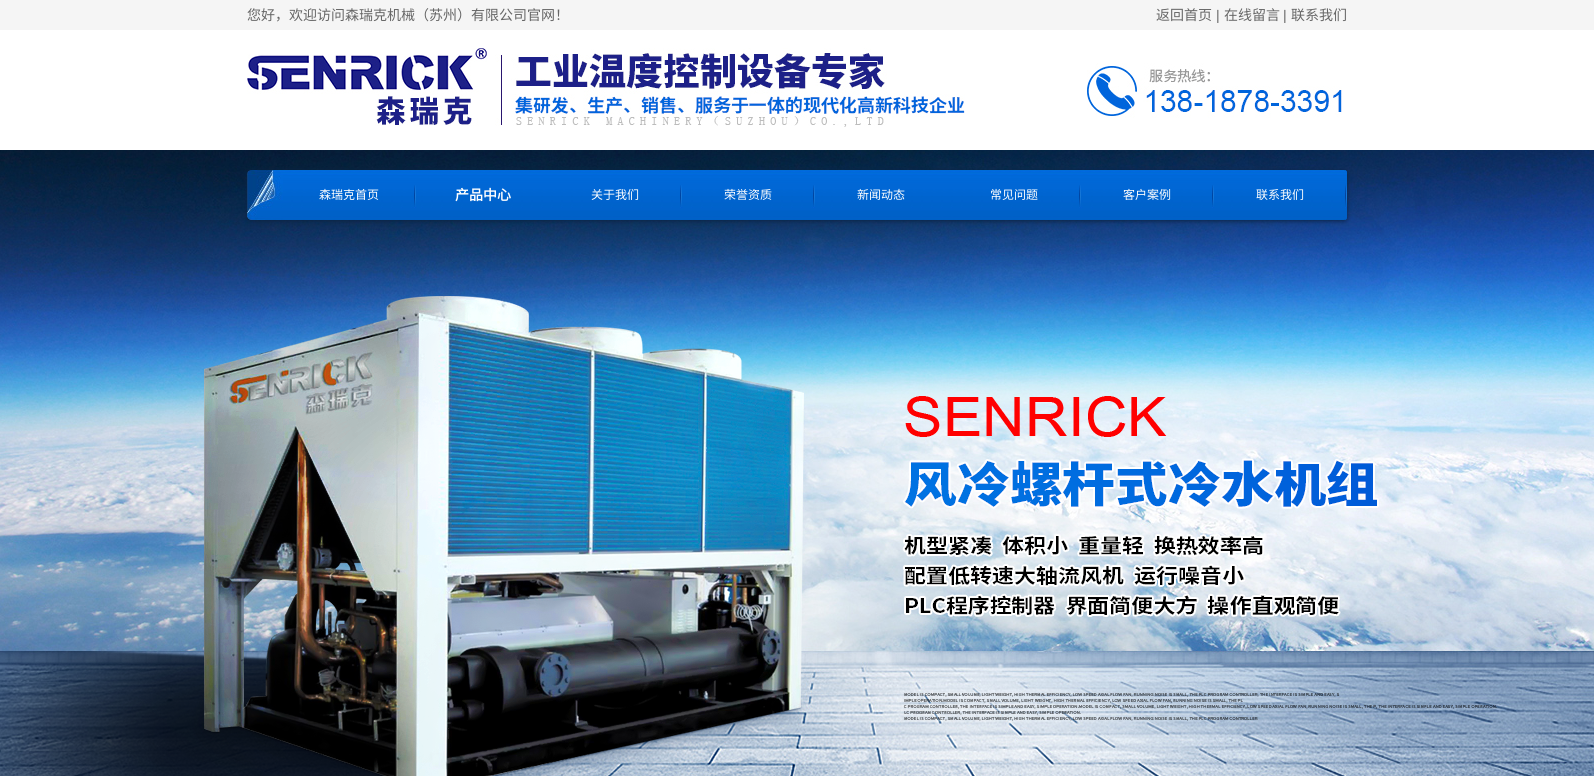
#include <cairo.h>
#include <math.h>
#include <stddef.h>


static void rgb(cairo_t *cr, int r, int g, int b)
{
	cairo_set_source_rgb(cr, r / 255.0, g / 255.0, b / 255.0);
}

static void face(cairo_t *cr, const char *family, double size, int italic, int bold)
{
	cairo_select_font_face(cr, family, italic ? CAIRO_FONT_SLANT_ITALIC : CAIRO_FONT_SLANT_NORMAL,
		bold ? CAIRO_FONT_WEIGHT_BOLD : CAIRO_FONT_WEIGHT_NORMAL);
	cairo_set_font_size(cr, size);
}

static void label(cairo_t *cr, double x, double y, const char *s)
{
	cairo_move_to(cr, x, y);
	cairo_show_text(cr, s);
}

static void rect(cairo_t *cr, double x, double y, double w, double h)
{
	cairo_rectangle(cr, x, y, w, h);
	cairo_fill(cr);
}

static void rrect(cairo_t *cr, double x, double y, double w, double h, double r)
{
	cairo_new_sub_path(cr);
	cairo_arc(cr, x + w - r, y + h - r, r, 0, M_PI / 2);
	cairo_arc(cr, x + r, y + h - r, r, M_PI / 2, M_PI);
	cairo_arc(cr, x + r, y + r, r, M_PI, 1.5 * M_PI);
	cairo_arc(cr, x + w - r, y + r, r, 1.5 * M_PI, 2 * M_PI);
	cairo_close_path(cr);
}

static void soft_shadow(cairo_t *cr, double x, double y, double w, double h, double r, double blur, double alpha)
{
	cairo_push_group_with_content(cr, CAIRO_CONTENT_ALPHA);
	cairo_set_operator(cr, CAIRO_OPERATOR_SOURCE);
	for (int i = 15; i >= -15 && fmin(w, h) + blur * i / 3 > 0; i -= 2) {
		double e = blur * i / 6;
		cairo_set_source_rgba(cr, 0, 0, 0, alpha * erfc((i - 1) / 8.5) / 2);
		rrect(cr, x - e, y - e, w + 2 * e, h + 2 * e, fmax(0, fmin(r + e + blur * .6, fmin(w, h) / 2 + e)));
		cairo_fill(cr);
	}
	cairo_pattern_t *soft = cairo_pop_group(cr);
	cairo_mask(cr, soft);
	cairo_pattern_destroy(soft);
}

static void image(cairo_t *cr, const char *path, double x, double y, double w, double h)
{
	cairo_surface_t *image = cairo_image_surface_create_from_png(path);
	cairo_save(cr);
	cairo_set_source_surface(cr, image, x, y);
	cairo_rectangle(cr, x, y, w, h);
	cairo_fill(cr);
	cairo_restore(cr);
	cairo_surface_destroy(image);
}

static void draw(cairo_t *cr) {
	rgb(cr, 255, 255, 255);
	cairo_paint(cr);
	rgb(cr, 245, 245, 245);
	rect(cr, 0, 0, 1594, 30);
	face(cr, "Noto Sans CJK SC", 14, 0, 0);
	rgb(cr, 102, 102, 102);
	label(cr, 247, 20, "您好，欢迎访问森瑞克机械（苏州）有限公司官网！");
	label(cr, 1156, 20, "返回首页");
	face(cr, "Liberation Sans", 14, 0, 0);
	label(cr, 1216, 20, "|");
	face(cr, "Noto Sans CJK SC", 14, 0, 0);
	label(cr, 1224, 20, "在线留言");
	face(cr, "Liberation Sans", 14, 0, 0);
	label(cr, 1283, 20, "|");
	face(cr, "Noto Sans CJK SC", 14, 0, 0);
	label(cr, 1291, 20, "联系我们");
	image(cr, "image0.png", 247, 48, 718, 79);
	image(cr, "image1.png", 1087, 63, 255, 55);
	image(cr, "image2.png", 0, 150, 1594, 626);
	rgb(cr, 11, 34, 67);
	soft_shadow(cr, 247, 171, 1100, 50, 3, 2.5, 1);
	image(cr, "image3.png", 247, 170, 36, 50);
	image(cr, "image4.png", 283, 170, 1064, 50);
	image(cr, "image5.png", 414, 185, 2, 23);
	face(cr, "Noto Sans CJK SC", 12, 0, 0);
	rgb(cr, 255, 255, 255);
	label(cr, 319, 199, "森瑞克首页");
	face(cr, "Noto Sans CJK SC", 14, 0, 1);
	label(cr, 455, 200, "产品中心");
	image(cr, "image5.png", 680, 185, 2, 23);
	face(cr, "Noto Sans CJK SC", 12, 0, 0);
	label(cr, 591, 199, "关于我们");
	image(cr, "image5.png", 813, 185, 2, 23);
	label(cr, 724, 199, "荣誉资质");
	label(cr, 857, 199, "新闻动态");
	image(cr, "image5.png", 1079, 185, 2, 23);
	label(cr, 990, 199, "常见问题");
	image(cr, "image5.png", 1212, 185, 2, 23);
	label(cr, 1123, 199, "客户案例");
	image(cr, "image6.png", 1345, 170, 2, 50);
	label(cr, 1256, 199, "联系我们");
	image(cr, "image7.png", 0, 296, 1497, 480);
}

int main(void) {
	cairo_surface_t *surface = cairo_image_surface_create(CAIRO_FORMAT_RGB24, 1594, 776);
	cairo_t *cr = cairo_create(surface);
	cairo_font_options_t *options = cairo_font_options_create();
	cairo_font_options_set_hint_metrics(options, CAIRO_HINT_METRICS_OFF);
	cairo_font_options_set_hint_style(options, CAIRO_HINT_STYLE_NONE);
	cairo_set_font_options(cr, options);
	cairo_set_miter_limit(cr, 4);
	draw(cr);
	cairo_surface_write_to_png(surface, "render.png");
	cairo_font_options_destroy(options);
	cairo_destroy(cr);
	cairo_surface_destroy(surface);
	return 0;
}
